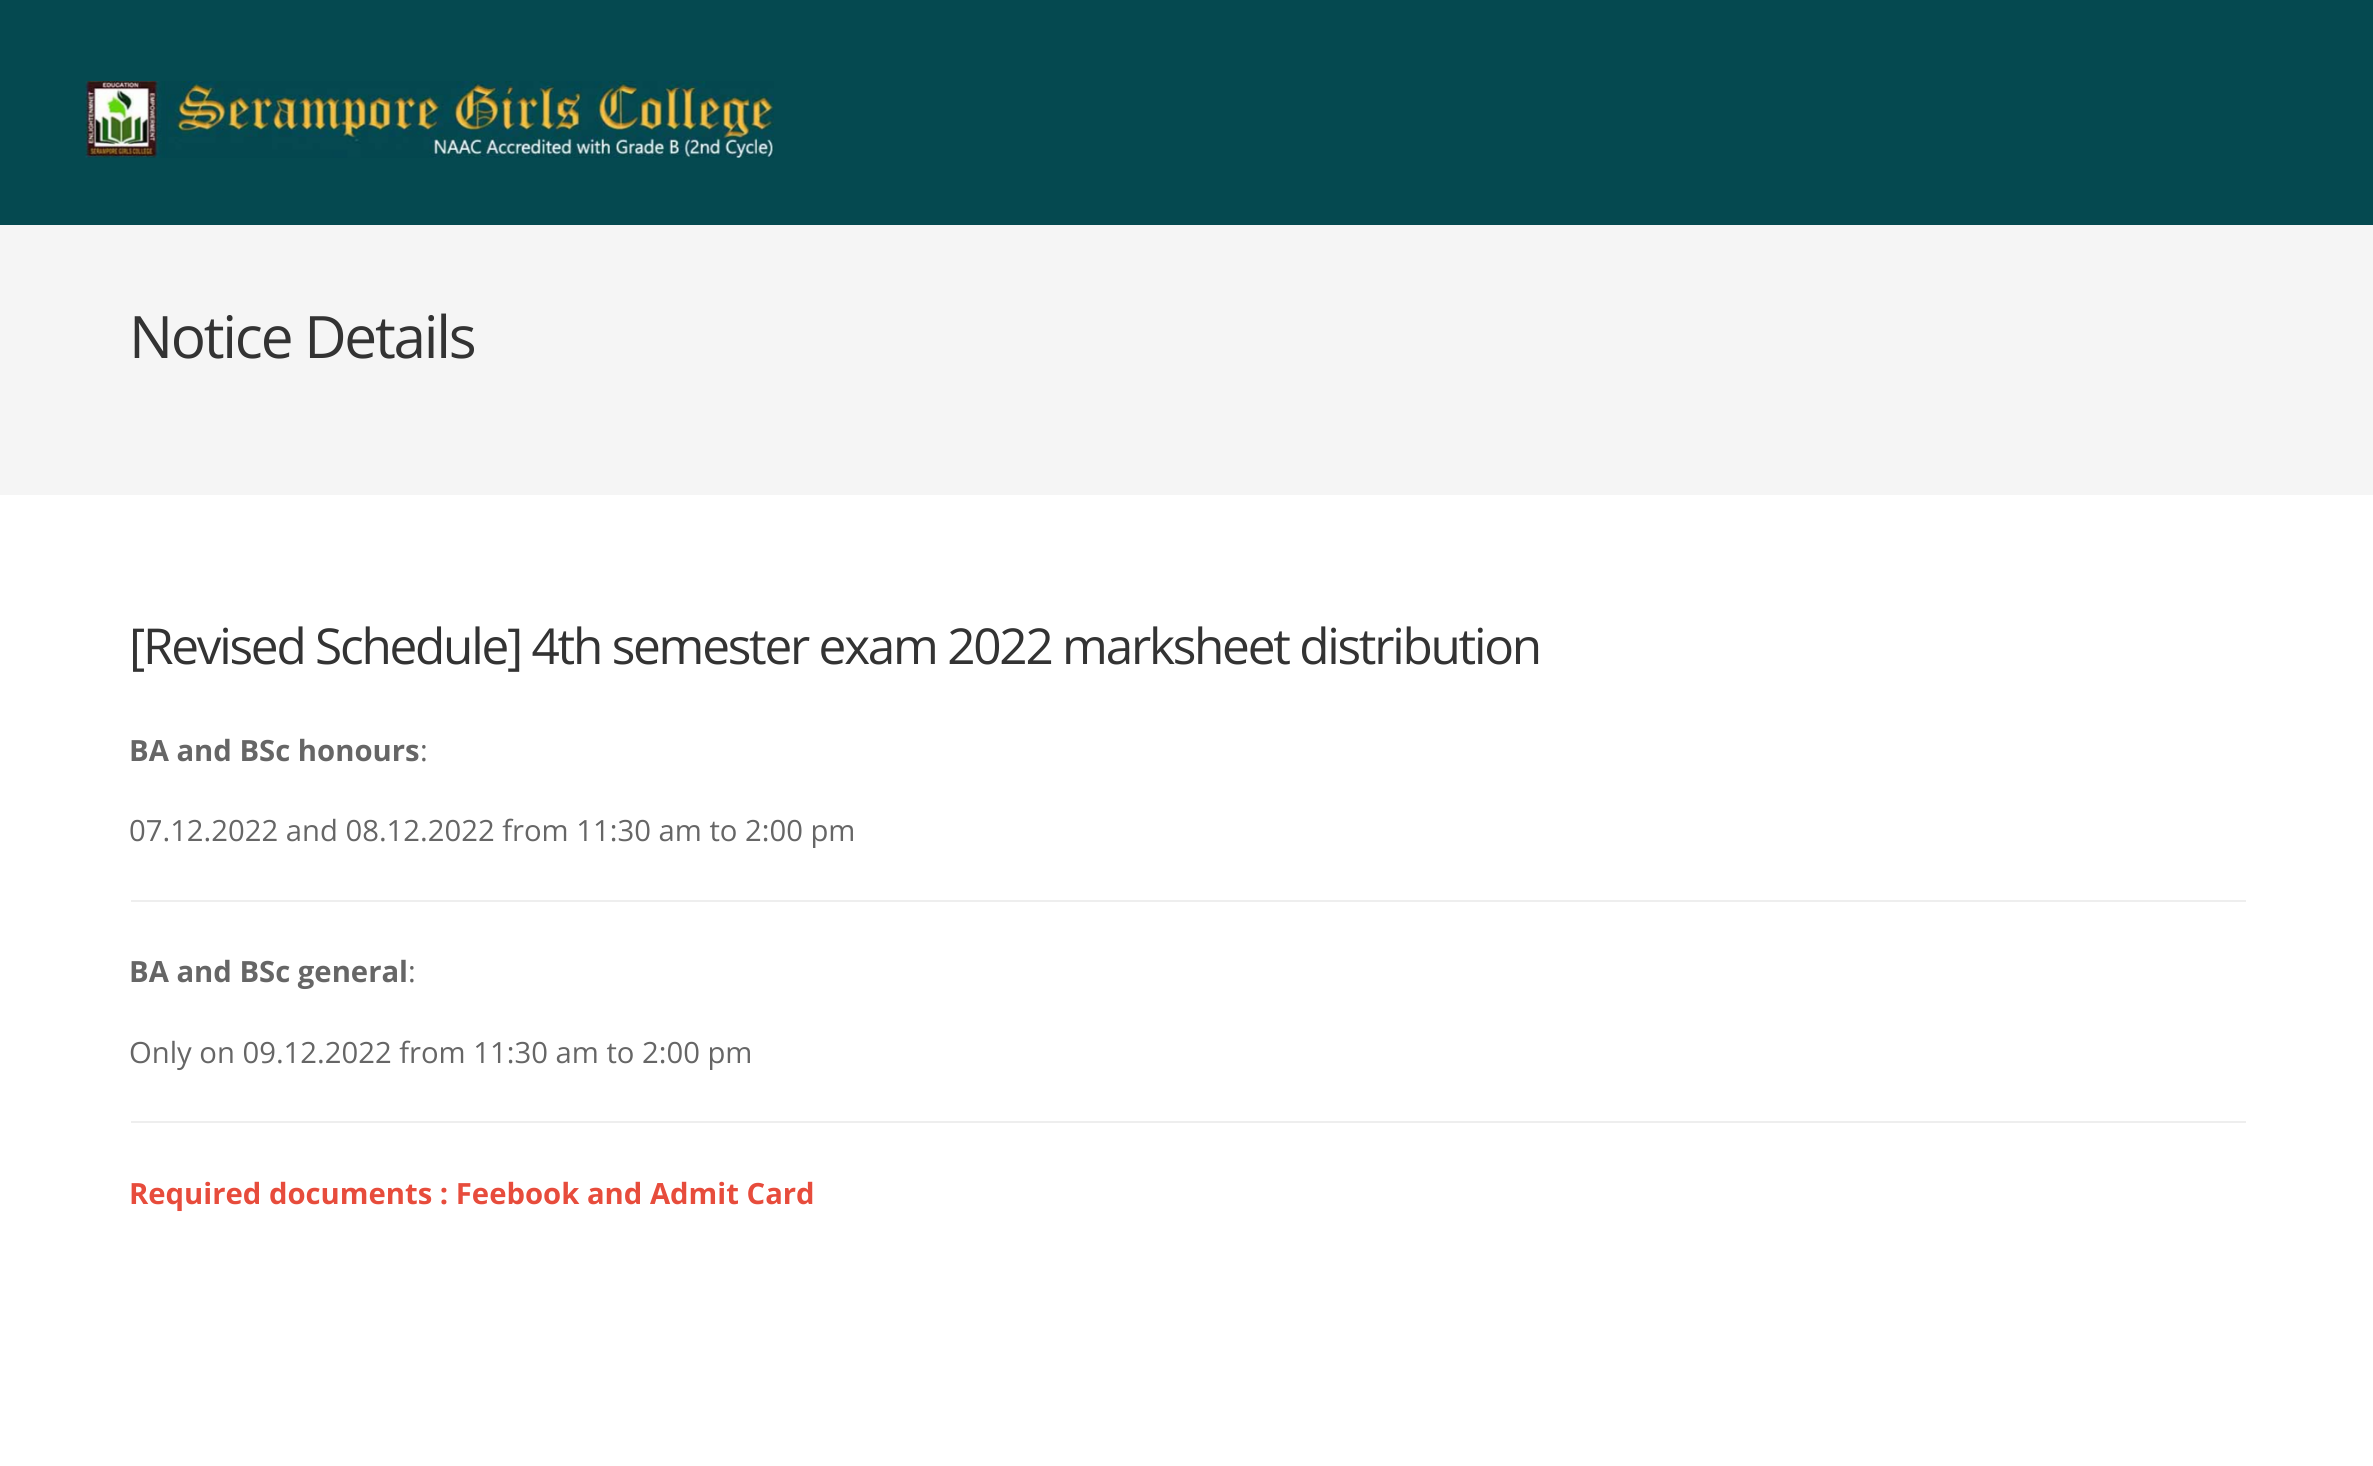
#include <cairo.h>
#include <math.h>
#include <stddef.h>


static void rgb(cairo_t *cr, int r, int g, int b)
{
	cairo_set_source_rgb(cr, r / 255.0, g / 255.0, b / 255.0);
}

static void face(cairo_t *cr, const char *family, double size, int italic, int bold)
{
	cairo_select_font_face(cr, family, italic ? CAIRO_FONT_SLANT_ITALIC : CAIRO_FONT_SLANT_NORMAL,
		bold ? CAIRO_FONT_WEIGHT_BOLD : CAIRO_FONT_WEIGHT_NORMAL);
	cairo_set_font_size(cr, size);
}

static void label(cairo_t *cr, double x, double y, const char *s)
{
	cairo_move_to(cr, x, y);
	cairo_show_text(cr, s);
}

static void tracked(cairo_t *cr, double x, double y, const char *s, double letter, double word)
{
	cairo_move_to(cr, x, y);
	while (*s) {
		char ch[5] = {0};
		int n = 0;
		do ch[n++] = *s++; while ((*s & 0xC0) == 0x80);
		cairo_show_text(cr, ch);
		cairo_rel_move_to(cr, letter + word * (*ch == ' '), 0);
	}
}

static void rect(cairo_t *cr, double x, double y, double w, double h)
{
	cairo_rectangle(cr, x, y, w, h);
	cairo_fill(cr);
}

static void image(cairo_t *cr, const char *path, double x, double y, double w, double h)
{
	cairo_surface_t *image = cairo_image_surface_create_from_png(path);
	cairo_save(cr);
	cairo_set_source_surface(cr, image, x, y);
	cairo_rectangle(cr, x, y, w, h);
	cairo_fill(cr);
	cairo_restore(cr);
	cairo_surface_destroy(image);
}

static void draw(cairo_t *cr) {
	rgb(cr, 255, 255, 255);
	cairo_paint(cr);
	rgb(cr, 5, 73, 80);
	rect(cr, 0, 0, 2373, 225);
	image(cr, "image0.png", 85, 81, 689, 77);
	rgb(cr, 245, 245, 245);
	rect(cr, 0, 225, 2373, 270);
	face(cr, "Open Sans", 58.5, 0, 0);
	rgb(cr, 51, 51, 51);
	tracked(cr, 129, 358, "Notice Details", -2.25, 0);
	face(cr, "Open Sans", 49.5, 0, 0);
	tracked(cr, 129, 664, "[Revised Schedule] 4th semester exam 2022 marksheet distribution", -2.25, 0);
	face(cr, "Open Sans", 29.25, 0, 1);
	rgb(cr, 102, 102, 102);
	label(cr, 129, 761, "BA and BSc honours");
	face(cr, "Open Sans", 29.25, 0, 0);
	label(cr, 420, 761, ":");
	label(cr, 129, 841, "07.12.2022 and 08.12.2022 from 11:30 am to 2:00 pm");
	rgb(cr, 238, 238, 238);
	rect(cr, 131, 900, 2115, 2);
	face(cr, "Open Sans", 29.25, 0, 1);
	rgb(cr, 102, 102, 102);
	label(cr, 129, 982, "BA and BSc general");
	face(cr, "Open Sans", 29.25, 0, 0);
	label(cr, 408, 982, ":");
	label(cr, 129, 1063, "Only on 09.12.2022 from 11:30 am to 2:00 pm");
	rgb(cr, 238, 238, 238);
	rect(cr, 131, 1121, 2115, 2);
	face(cr, "Open Sans", 29.25, 0, 1);
	rgb(cr, 231, 76, 60);
	label(cr, 129, 1204, "Required documents : Feebook and Admit Card");
}

int main(void) {
	cairo_surface_t *surface = cairo_image_surface_create(CAIRO_FORMAT_RGB24, 2373, 1466);
	cairo_t *cr = cairo_create(surface);
	cairo_font_options_t *options = cairo_font_options_create();
	cairo_font_options_set_hint_metrics(options, CAIRO_HINT_METRICS_OFF);
	cairo_font_options_set_hint_style(options, CAIRO_HINT_STYLE_NONE);
	cairo_set_font_options(cr, options);
	cairo_set_miter_limit(cr, 4);
	draw(cr);
	cairo_surface_write_to_png(surface, "render.png");
	cairo_font_options_destroy(options);
	cairo_destroy(cr);
	cairo_surface_destroy(surface);
	return 0;
}
